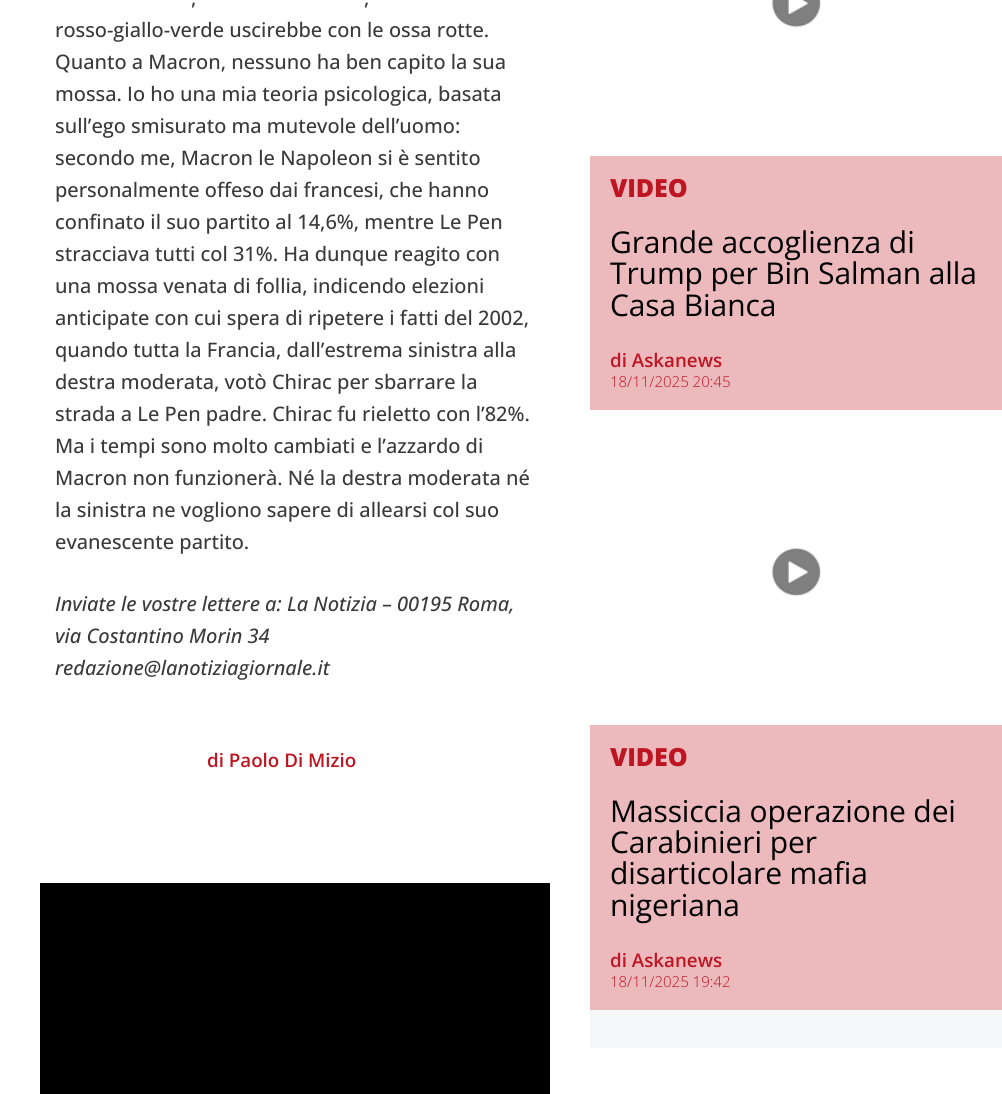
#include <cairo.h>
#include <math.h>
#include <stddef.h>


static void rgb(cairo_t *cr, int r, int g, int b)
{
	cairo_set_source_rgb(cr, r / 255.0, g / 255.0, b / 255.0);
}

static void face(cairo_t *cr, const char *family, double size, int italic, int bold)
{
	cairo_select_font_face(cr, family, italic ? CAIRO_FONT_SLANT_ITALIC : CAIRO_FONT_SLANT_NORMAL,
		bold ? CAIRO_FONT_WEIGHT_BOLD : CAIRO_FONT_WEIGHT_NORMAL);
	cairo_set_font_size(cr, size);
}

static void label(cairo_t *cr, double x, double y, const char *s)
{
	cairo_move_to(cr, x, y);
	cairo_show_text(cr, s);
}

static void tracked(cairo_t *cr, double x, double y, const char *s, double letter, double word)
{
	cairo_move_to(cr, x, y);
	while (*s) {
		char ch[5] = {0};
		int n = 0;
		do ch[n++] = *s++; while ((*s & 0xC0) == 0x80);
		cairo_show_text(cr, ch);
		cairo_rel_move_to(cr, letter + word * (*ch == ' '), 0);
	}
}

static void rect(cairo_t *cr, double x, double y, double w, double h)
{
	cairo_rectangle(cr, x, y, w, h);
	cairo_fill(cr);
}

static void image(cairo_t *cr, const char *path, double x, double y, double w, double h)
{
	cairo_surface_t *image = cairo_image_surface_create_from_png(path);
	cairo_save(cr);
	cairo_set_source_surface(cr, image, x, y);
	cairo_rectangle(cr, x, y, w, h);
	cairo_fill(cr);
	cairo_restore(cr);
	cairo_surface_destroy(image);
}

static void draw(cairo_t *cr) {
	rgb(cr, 255, 255, 255);
	cairo_paint(cr);
	face(cr, "Open Sans Medium", 20, 0, 0);
	rgb(cr, 58, 58, 58);
	label(cr, 191, 5, ",");
	label(cr, 364, 5, ",");
	label(cr, 55, 37, "rosso-giallo-verde uscirebbe con le ossa rotte.");
	label(cr, 55, 69, "Quanto a Macron, nessuno ha ben capito la sua");
	label(cr, 55, 101, "mossa. Io ho una mia teoria psicologica, basata");
	label(cr, 55, 133, "sull’ego smisurato ma mutevole dell’uomo:");
	label(cr, 55, 165, "secondo me, Macron le Napoleon si è sentito");
	label(cr, 55, 197, "personalmente offeso dai francesi, che hanno");
	label(cr, 55, 229, "confinato il suo partito al 14,6%, mentre Le Pen");
	label(cr, 55, 261, "stracciava tutti col 31%. Ha dunque reagito con");
	label(cr, 55, 293, "una mossa venata di follia, indicendo elezioni");
	label(cr, 55, 325, "anticipate con cui spera di ripetere i fatti del 2002,");
	label(cr, 55, 357, "quando tutta la Francia, dall’estrema sinistra alla");
	label(cr, 55, 389, "destra moderata, votò Chirac per sbarrare la");
	label(cr, 55, 421, "strada a Le Pen padre. Chirac fu rieletto con l’82%.");
	label(cr, 55, 453, "Ma i tempi sono molto cambiati e l’azzardo di");
	label(cr, 55, 485, "Macron non funzionerà. Né la destra moderata né");
	label(cr, 55, 517, "la sinistra ne vogliono sapere di allearsi col suo");
	label(cr, 55, 549, "evanescente partito.");
	face(cr, "Open Sans Medium", 20, 1, 0);
	label(cr, 55, 611, "Inviate le vostre lettere a: La Notizia – 00195 Roma,");
	label(cr, 55, 643, "via Costantino Morin 34");
	label(cr, 55, 675, "redazione@lanotiziagiornale.it");
	face(cr, "Open Sans SemiBold", 18.75, 0, 0);
	rgb(cr, 190, 21, 34);
	label(cr, 207, 767, "di Paolo Di Mizio");
	rgb(cr, 0, 0, 0);
	rect(cr, 40, 883, 510, 211);
	image(cr, "image0.png", 772, 0, 49, 28);
	rgb(cr, 236, 185, 189);
	rect(cr, 590, 156, 412, 254);
	face(cr, "Open Sans ExtraBold", 25, 0, 0);
	rgb(cr, 190, 21, 34);
	tracked(cr, 610, 197, "VIDEO", -0.1, 0);
	face(cr, "Open Sans", 30, 0, 0);
	rgb(cr, 0, 0, 0);
	tracked(cr, 610, 253, "Grande accoglienza di", -0.1, 0);
	tracked(cr, 610, 284, "Trump per Bin Salman alla", -0.1, 0);
	tracked(cr, 610, 316, "Casa Bianca", -0.1, 0);
	face(cr, "Open Sans SemiBold", 18.75, 0, 0);
	rgb(cr, 190, 21, 34);
	label(cr, 610, 367, "di Askanews");
	face(cr, "Open Sans Light", 15, 0, 0);
	label(cr, 610, 387, "18/11/2025 20:45");
	image(cr, "image1.png", 772, 547, 49, 50);
	rgb(cr, 236, 185, 189);
	rect(cr, 590, 725, 412, 285);
	face(cr, "Open Sans ExtraBold", 25, 0, 0);
	rgb(cr, 190, 21, 34);
	tracked(cr, 610, 766, "VIDEO", -0.1, 0);
	face(cr, "Open Sans", 30, 0, 0);
	rgb(cr, 0, 0, 0);
	tracked(cr, 610, 822, "Massiccia operazione dei", -0.1, 0);
	tracked(cr, 610, 853, "Carabinieri per", -0.1, 0);
	tracked(cr, 610, 884, "disarticolare mafia", -0.1, 0);
	tracked(cr, 610, 916, "nigeriana", -0.1, 0);
	face(cr, "Open Sans SemiBold", 18.75, 0, 0);
	rgb(cr, 190, 21, 34);
	label(cr, 610, 967, "di Askanews");
	face(cr, "Open Sans Light", 15, 0, 0);
	label(cr, 610, 987, "18/11/2025 19:42");
	rgb(cr, 244, 246, 247);
	rect(cr, 590, 1010, 412, 38);
}

int main(void) {
	cairo_surface_t *surface = cairo_image_surface_create(CAIRO_FORMAT_RGB24, 1002, 1094);
	cairo_t *cr = cairo_create(surface);
	cairo_font_options_t *options = cairo_font_options_create();
	cairo_font_options_set_hint_metrics(options, CAIRO_HINT_METRICS_OFF);
	cairo_font_options_set_hint_style(options, CAIRO_HINT_STYLE_NONE);
	cairo_set_font_options(cr, options);
	cairo_set_miter_limit(cr, 4);
	draw(cr);
	cairo_surface_write_to_png(surface, "render.png");
	cairo_font_options_destroy(options);
	cairo_destroy(cr);
	cairo_surface_destroy(surface);
	return 0;
}
